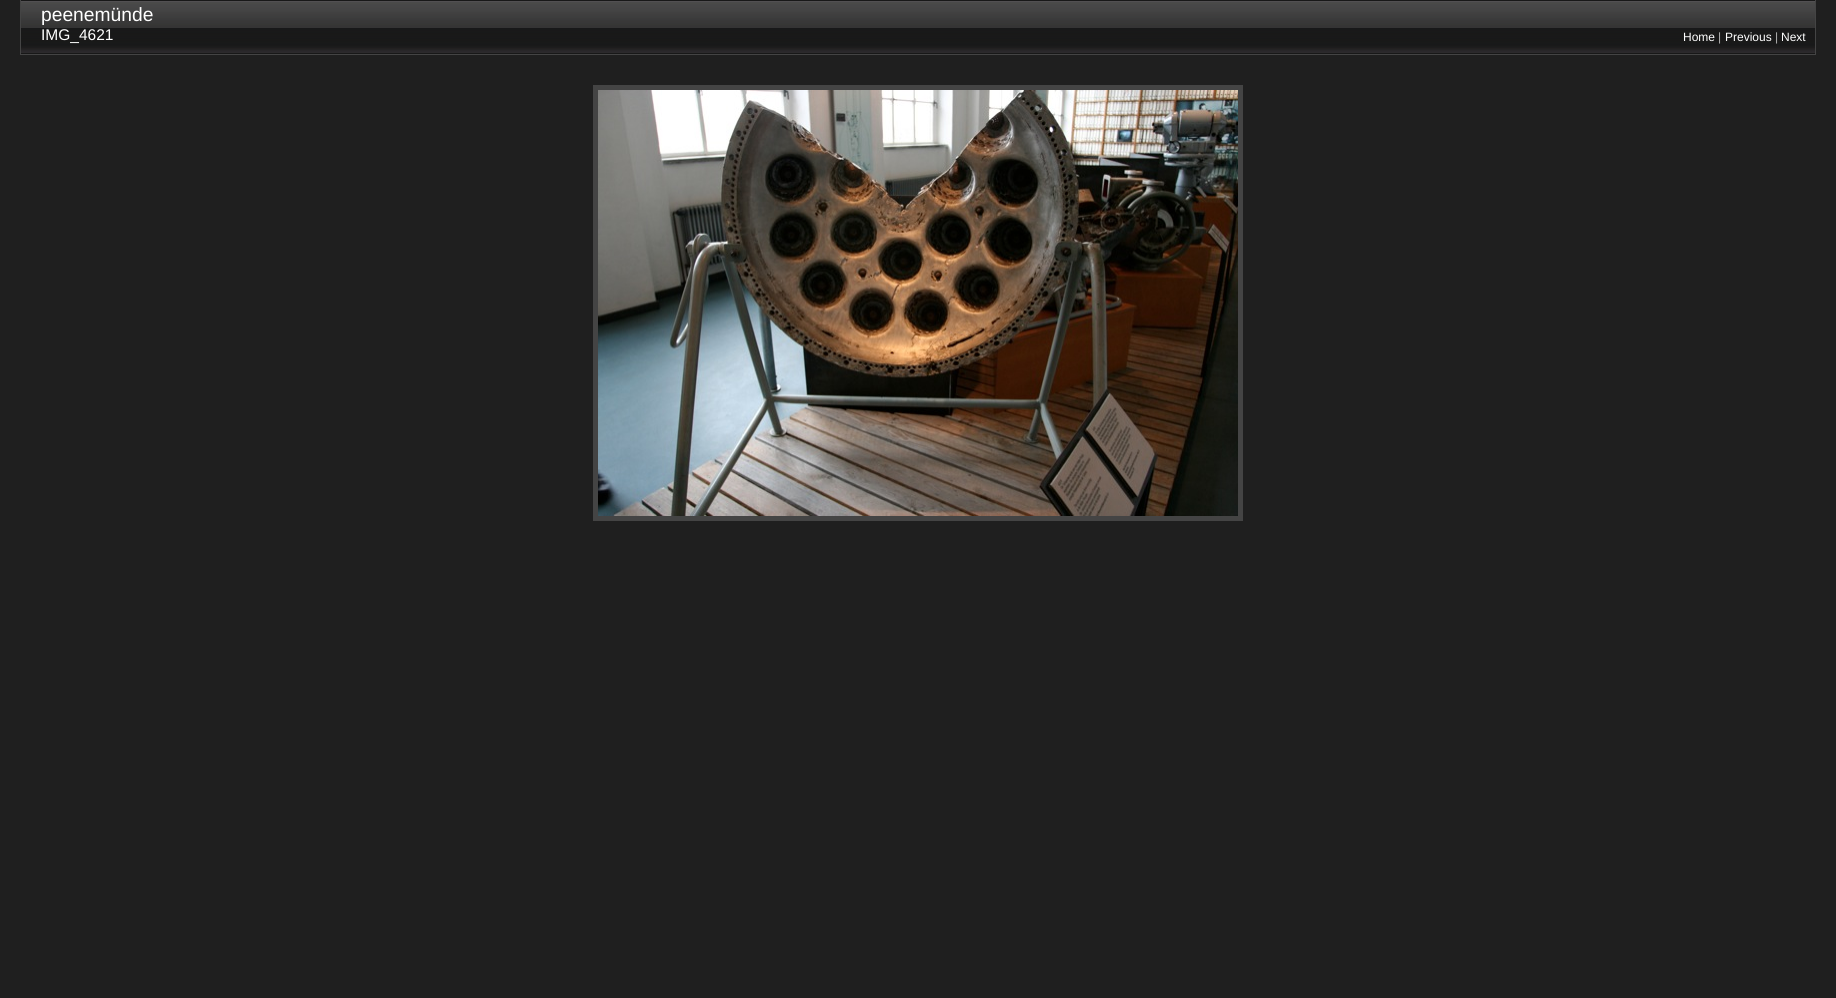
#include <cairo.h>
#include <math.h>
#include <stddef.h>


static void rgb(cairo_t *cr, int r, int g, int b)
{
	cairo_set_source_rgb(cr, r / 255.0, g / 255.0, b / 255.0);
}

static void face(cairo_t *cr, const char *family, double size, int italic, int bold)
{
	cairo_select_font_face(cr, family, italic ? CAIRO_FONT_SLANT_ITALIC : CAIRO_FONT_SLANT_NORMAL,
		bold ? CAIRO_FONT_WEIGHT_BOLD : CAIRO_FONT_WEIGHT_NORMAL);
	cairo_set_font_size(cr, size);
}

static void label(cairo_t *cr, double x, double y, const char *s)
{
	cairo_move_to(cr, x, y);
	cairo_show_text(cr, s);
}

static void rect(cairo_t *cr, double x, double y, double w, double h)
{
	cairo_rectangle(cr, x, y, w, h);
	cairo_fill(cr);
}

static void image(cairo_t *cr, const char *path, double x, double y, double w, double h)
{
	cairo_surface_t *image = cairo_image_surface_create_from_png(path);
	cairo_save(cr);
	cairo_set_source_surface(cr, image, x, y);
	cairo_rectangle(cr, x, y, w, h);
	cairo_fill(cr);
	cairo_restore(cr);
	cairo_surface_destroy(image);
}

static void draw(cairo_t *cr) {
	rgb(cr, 31, 31, 31);
	cairo_paint(cr);
	image(cr, "image0.png", 21, 0, 1794, 54);
	rgb(cr, 68, 68, 68);
	rect(cr, 1815, 0, 1, 55);
	rect(cr, 20, 54, 1796, 1);
	rect(cr, 20, 0, 1, 55);
	face(cr, "Liberation Sans", 19.25, 0, 0);
	rgb(cr, 255, 255, 255);
	label(cr, 41, 21, "peenemünde");
	face(cr, "Liberation Sans", 15.5, 0, 0);
	label(cr, 41, 40, "IMG_4621");
	face(cr, "Liberation Sans", 12, 0, 0);
	label(cr, 1683, 41, "Home");
	rgb(cr, 179, 179, 179);
	label(cr, 1718, 41, "|");
	rgb(cr, 255, 255, 255);
	label(cr, 1725, 41, "Previous");
	rgb(cr, 179, 179, 179);
	label(cr, 1775, 41, "|");
	rgb(cr, 255, 255, 255);
	label(cr, 1781, 41, "Next");
	rgb(cr, 68, 68, 68);
	rect(cr, 593, 85, 650, 436);
	image(cr, "image1.png", 598, 90, 640, 426);
}

int main(void) {
	cairo_surface_t *surface = cairo_image_surface_create(CAIRO_FORMAT_RGB24, 1836, 998);
	cairo_t *cr = cairo_create(surface);
	cairo_font_options_t *options = cairo_font_options_create();
	cairo_font_options_set_hint_metrics(options, CAIRO_HINT_METRICS_OFF);
	cairo_font_options_set_hint_style(options, CAIRO_HINT_STYLE_NONE);
	cairo_set_font_options(cr, options);
	cairo_set_miter_limit(cr, 4);
	draw(cr);
	cairo_surface_write_to_png(surface, "render.png");
	cairo_font_options_destroy(options);
	cairo_destroy(cr);
	cairo_surface_destroy(surface);
	return 0;
}
